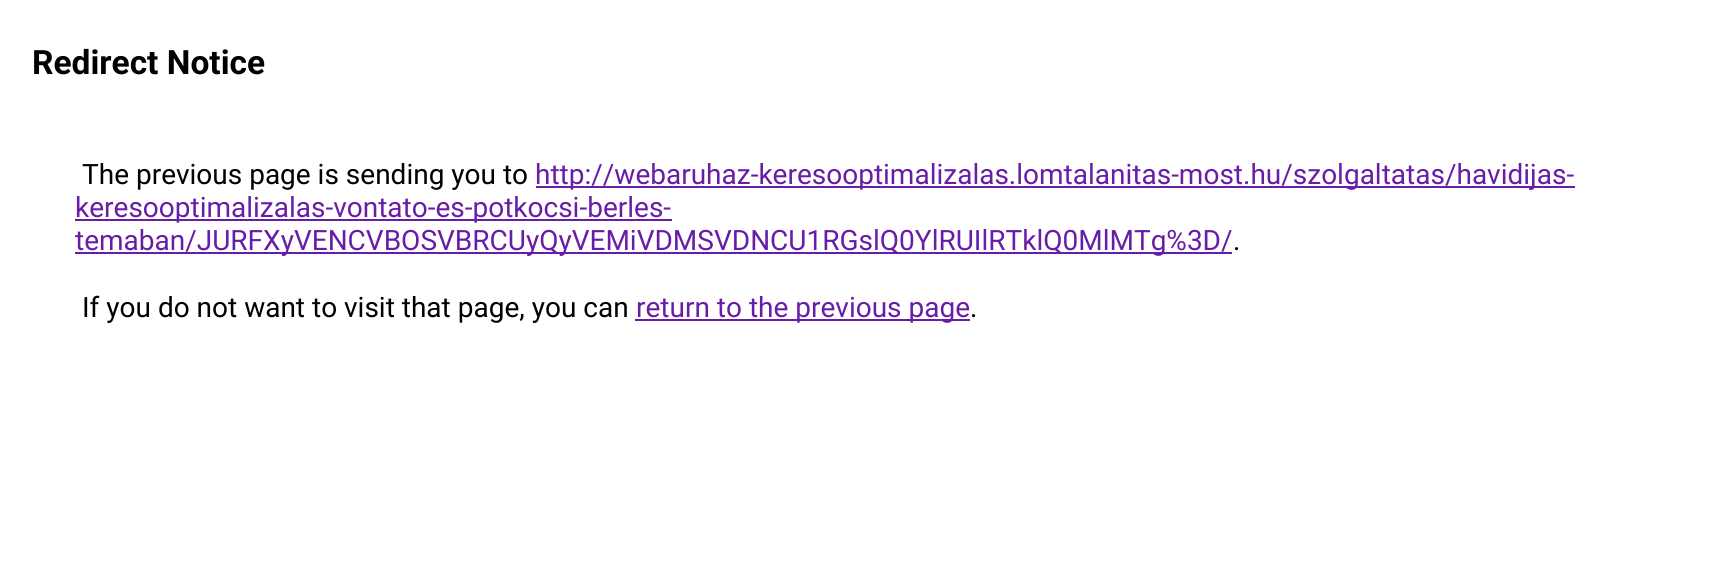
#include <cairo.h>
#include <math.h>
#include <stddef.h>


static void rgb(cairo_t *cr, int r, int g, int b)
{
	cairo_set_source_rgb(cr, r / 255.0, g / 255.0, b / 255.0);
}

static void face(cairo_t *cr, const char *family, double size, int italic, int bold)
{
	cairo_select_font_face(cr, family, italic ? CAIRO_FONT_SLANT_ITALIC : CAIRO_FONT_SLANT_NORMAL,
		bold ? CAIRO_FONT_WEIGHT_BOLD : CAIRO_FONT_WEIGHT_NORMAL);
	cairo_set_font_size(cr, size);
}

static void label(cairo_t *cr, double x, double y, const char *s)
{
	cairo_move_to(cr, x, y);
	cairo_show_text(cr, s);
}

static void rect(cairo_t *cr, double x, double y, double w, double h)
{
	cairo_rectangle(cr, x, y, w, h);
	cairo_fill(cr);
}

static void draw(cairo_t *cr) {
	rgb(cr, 255, 255, 255);
	cairo_paint(cr);
	face(cr, "Roboto", 33.5, 0, 1);
	rgb(cr, 0, 0, 0);
	label(cr, 32, 74, "Redirect Notice");
	face(cr, "Roboto", 28, 0, 0);
	label(cr, 82, 184, "The previous page is sending you to");
	rgb(cr, 104, 29, 168);
	rect(cr, 536, 186, 1039, 2);
	label(cr, 535, 184, "http://webaruhaz-keresooptimalizalas.lomtalanitas-most.hu/szolgaltatas/havidijas-");
	rect(cr, 75, 219, 597, 2);
	label(cr, 75, 217, "keresooptimalizalas-vontato-es-potkocsi-berles-");
	rect(cr, 75, 252, 1157, 2);
	label(cr, 75, 250, "temaban/JURFXyVENCVBOSVBRCUyQyVEMiVDMSVDNCU1RGslQ0YlRUIlRTklQ0MlMTg%3D/");
	rgb(cr, 0, 0, 0);
	label(cr, 1233, 250, ".");
	label(cr, 82, 317, "If you do not want to visit that page, you can");
	rgb(cr, 104, 29, 168);
	rect(cr, 635, 319, 335, 2);
	label(cr, 636, 317, "return to the previous page");
	rgb(cr, 0, 0, 0);
	label(cr, 970, 317, ".");
}

int main(void) {
	cairo_surface_t *surface = cairo_image_surface_create(CAIRO_FORMAT_RGB24, 1725, 576);
	cairo_t *cr = cairo_create(surface);
	cairo_font_options_t *options = cairo_font_options_create();
	cairo_font_options_set_hint_metrics(options, CAIRO_HINT_METRICS_OFF);
	cairo_font_options_set_hint_style(options, CAIRO_HINT_STYLE_NONE);
	cairo_set_font_options(cr, options);
	cairo_set_miter_limit(cr, 4);
	draw(cr);
	cairo_surface_write_to_png(surface, "render.png");
	cairo_font_options_destroy(options);
	cairo_destroy(cr);
	cairo_surface_destroy(surface);
	return 0;
}
